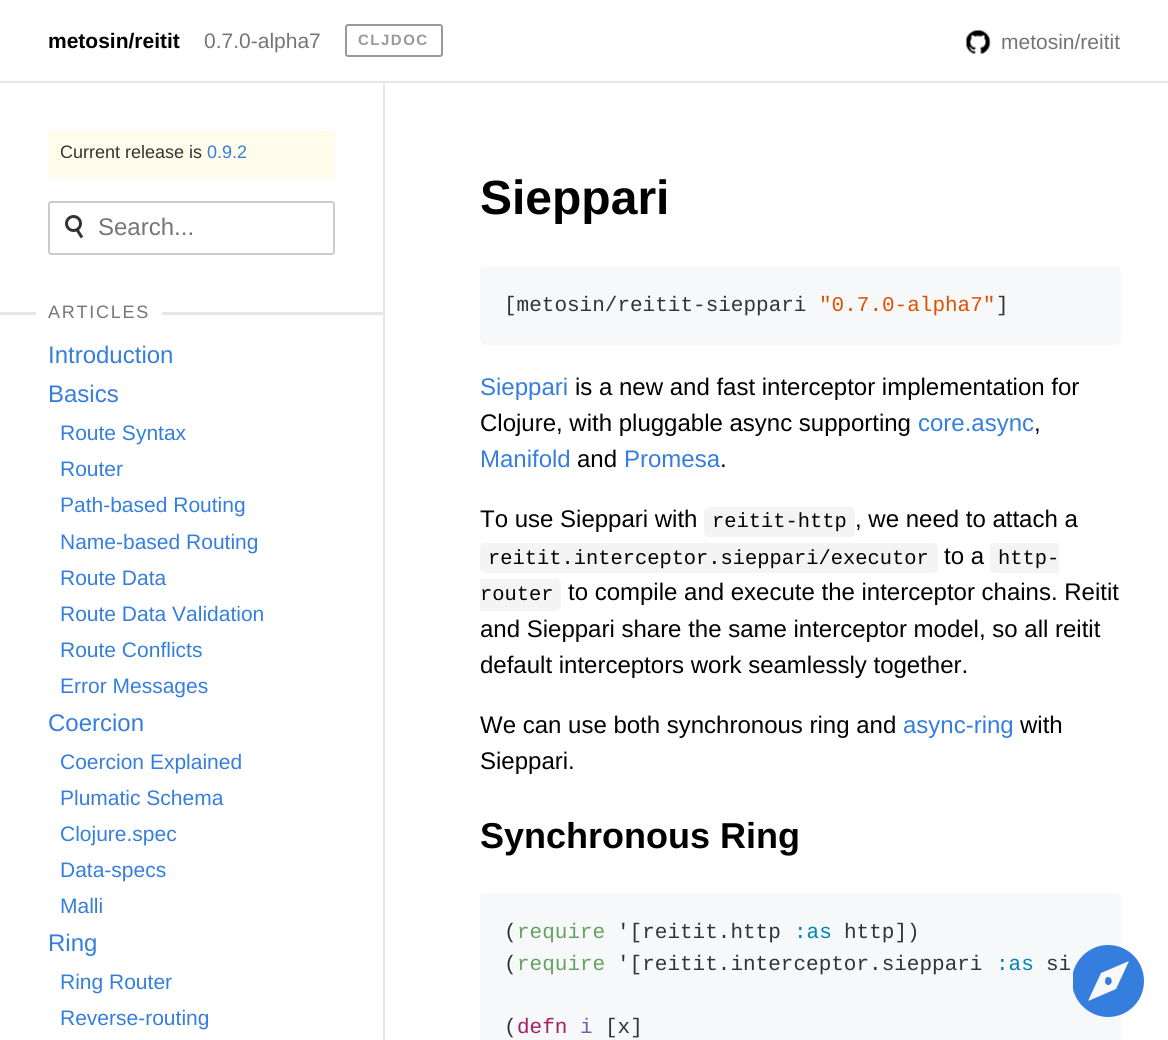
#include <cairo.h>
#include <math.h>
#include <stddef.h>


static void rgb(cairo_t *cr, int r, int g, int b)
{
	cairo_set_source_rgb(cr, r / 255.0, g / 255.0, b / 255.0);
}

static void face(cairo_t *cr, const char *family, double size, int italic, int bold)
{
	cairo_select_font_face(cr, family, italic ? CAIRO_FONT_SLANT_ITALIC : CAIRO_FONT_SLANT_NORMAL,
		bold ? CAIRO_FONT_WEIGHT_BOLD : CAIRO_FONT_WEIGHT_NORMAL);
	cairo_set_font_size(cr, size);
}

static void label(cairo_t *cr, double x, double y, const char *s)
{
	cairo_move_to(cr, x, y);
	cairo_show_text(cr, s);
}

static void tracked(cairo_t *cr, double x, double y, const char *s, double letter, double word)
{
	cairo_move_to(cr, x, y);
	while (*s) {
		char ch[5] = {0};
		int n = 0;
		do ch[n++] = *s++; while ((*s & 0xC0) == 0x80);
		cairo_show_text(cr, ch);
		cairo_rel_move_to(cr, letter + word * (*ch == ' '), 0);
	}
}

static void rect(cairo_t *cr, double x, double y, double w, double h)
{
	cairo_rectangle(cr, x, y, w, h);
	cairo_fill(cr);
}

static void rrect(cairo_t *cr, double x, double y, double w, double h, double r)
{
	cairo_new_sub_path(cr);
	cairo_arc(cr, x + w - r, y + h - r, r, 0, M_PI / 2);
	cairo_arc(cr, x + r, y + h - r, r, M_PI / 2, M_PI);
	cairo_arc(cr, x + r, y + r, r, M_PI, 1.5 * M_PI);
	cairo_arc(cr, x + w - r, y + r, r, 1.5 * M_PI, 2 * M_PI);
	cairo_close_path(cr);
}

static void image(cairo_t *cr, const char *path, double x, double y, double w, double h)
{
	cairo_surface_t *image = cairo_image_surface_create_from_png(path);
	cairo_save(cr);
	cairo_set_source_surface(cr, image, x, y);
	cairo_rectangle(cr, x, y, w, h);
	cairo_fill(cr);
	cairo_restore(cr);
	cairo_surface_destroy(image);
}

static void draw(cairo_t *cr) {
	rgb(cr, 255, 255, 255);
	cairo_paint(cr);
	rgb(cr, 230, 230, 230);
	rect(cr, 0, 81, 1168, 2);
	face(cr, "Liberation Sans", 21, 0, 1);
	rgb(cr, 0, 0, 0);
	label(cr, 48, 48, "metosin/reitit");
	face(cr, "Liberation Sans", 21, 0, 0);
	rgb(cr, 117, 117, 117);
	label(cr, 204, 48, "0.7.0-alpha7");
	rrect(cr, 346, 25, 96, 31, 2);
	rgb(cr, 153, 153, 153);
	cairo_stroke(cr);
	face(cr, "Liberation Sans", 15, 0, 1);
	tracked(cr, 358, 45, "CLJDOC", 1.5, 0);
	image(cr, "image0.png", 966, 30, 25, 25);
	face(cr, "Liberation Sans", 21, 0, 0);
	rgb(cr, 117, 117, 117);
	label(cr, 1001, 49, "metosin/reitit");
	rgb(cr, 230, 230, 230);
	rect(cr, 383, 83, 2, 957);
	rgb(cr, 255, 252, 235);
	rect(cr, 48, 131, 287, 46);
	face(cr, "Liberation Sans", 18, 0, 0);
	rgb(cr, 51, 51, 51);
	label(cr, 60, 158, "Current release is");
	rgb(cr, 53, 126, 221);
	label(cr, 207, 158, "0.9.2");
	rrect(cr, 49, 202, 285, 52, 2);
	rgb(cr, 204, 204, 204);
	cairo_stroke(cr);
	cairo_arc(cr, 73.5, 223.5, 7, 0, 2 * M_PI);
	rgb(cr, 51, 51, 51);
	cairo_set_line_width(cr, 3);
	cairo_stroke(cr);
	cairo_new_path(cr);
	cairo_move_to(cr, 77.5, 230.5);
	cairo_line_to(cr, 82, 237.5);
	cairo_set_source_rgba(cr, 0, 0, 0, 0.8);
	cairo_stroke(cr);
	face(cr, "Liberation Sans", 24, 0, 0);
	rgb(cr, 117, 117, 117);
	label(cr, 98, 235, "Search...");
	rgb(cr, 230, 230, 230);
	rect(cr, 0, 312, 383, 3);
	rgb(cr, 255, 255, 255);
	rect(cr, 36, 312, 126, 3);
	face(cr, "Liberation Sans", 18, 0, 0);
	rgb(cr, 117, 117, 117);
	tracked(cr, 48, 318, "ARTICLES", 1.75, 0);
	face(cr, "Liberation Sans", 24, 0, 0);
	rgb(cr, 53, 126, 221);
	label(cr, 48, 363, "Introduction");
	label(cr, 48, 402, "Basics");
	face(cr, "Liberation Sans", 21, 0, 0);
	label(cr, 60, 440, "Route Syntax");
	label(cr, 60, 476, "Router");
	label(cr, 60, 512, "Path-based Routing");
	label(cr, 60, 549, "Name-based Routing");
	label(cr, 60, 585, "Route Data");
	label(cr, 60, 621, "Route Data Validation");
	label(cr, 60, 657, "Route Conflicts");
	label(cr, 60, 693, "Error Messages");
	face(cr, "Liberation Sans", 24, 0, 0);
	label(cr, 48, 731, "Coercion");
	face(cr, "Liberation Sans", 21, 0, 0);
	label(cr, 60, 769, "Coercion Explained");
	label(cr, 60, 805, "Plumatic Schema");
	label(cr, 60, 841, "Clojure.spec");
	label(cr, 60, 877, "Data-specs");
	label(cr, 60, 913, "Malli");
	face(cr, "Liberation Sans", 24, 0, 0);
	label(cr, 48, 951, "Ring");
	face(cr, "Liberation Sans", 21, 0, 0);
	label(cr, 60, 989, "Ring Router");
	label(cr, 60, 1025, "Reverse-routing");
	face(cr, "Liberation Sans", 48, 0, 1);
	rgb(cr, 0, 0, 0);
	label(cr, 480, 214, "Sieppari");
	rgb(cr, 246, 248, 250);
	rrect(cr, 480, 266, 641, 79, 5);
	cairo_fill(cr);
	face(cr, "Liberation Mono", 21, 0, 0);
	rgb(cr, 51, 51, 51);
	label(cr, 504, 311, "[metosin/reitit-sieppari");
	rgb(cr, 223, 80, 0);
	label(cr, 819, 311, "\"0.7.0-alpha7\"");
	rgb(cr, 51, 51, 51);
	label(cr, 996, 311, "]");
	face(cr, "Liberation Sans", 24, 0, 0);
	rgb(cr, 53, 126, 221);
	label(cr, 480, 395, "Sieppari");
	rgb(cr, 0, 0, 0);
	label(cr, 575, 395, "is a new and fast interceptor implementation for");
	label(cr, 480, 431, "Clojure, with pluggable async supporting");
	rgb(cr, 53, 126, 221);
	label(cr, 918, 431, "core.async");
	rgb(cr, 0, 0, 0);
	label(cr, 1034, 431, ",");
	rgb(cr, 53, 126, 221);
	label(cr, 480, 467, "Manifold");
	rgb(cr, 0, 0, 0);
	label(cr, 577, 467, "and");
	rgb(cr, 53, 126, 221);
	label(cr, 624, 467, "Promesa");
	rgb(cr, 0, 0, 0);
	label(cr, 720, 467, ".");
	label(cr, 480, 527, "To use Sieppari with");
	rgb(cr, 244, 244, 244);
	rrect(cr, 704, 507, 151, 30, 5);
	cairo_fill(cr);
	face(cr, "Liberation Mono", 20.4, 0, 0);
	rgb(cr, 0, 0, 0);
	label(cr, 712, 527, "reitit-http");
	face(cr, "Liberation Sans", 24, 0, 0);
	label(cr, 855, 527, ", we need to attach a");
	rgb(cr, 244, 244, 244);
	rrect(cr, 480, 543, 458, 30, 5);
	cairo_fill(cr);
	face(cr, "Liberation Mono", 20.4, 0, 0);
	rgb(cr, 0, 0, 0);
	label(cr, 488, 564, "reitit.interceptor.sieppari/executor");
	face(cr, "Liberation Sans", 24, 0, 0);
	label(cr, 944, 564, "to a");
	rgb(cr, 244, 244, 244);
	cairo_new_path(cr);
	cairo_move_to(cr, 995, 543);
	cairo_line_to(cr, 1059, 543);
	cairo_line_to(cr, 1059, 573);
	cairo_line_to(cr, 995, 573);
	cairo_curve_to(cr, 992, 573, 990, 571, 990, 568);
	cairo_line_to(cr, 990, 548);
	cairo_curve_to(cr, 990, 545, 992, 543, 995, 543);
	cairo_close_path(cr);
	cairo_fill(cr);
	face(cr, "Liberation Mono", 20.4, 0, 0);
	rgb(cr, 0, 0, 0);
	label(cr, 998, 564, "http-");
	rgb(cr, 244, 244, 244);
	cairo_new_path(cr);
	cairo_move_to(cr, 480, 579);
	cairo_line_to(cr, 556, 579);
	cairo_curve_to(cr, 559, 579, 561, 581, 561, 584);
	cairo_line_to(cr, 561, 606);
	cairo_curve_to(cr, 561, 609, 559, 611, 556, 611);
	cairo_line_to(cr, 480, 611);
	cairo_close_path(cr);
	cairo_fill(cr);
	rgb(cr, 0, 0, 0);
	label(cr, 480, 600, "router");
	face(cr, "Liberation Sans", 24, 0, 0);
	label(cr, 568, 600, "to compile and execute the interceptor chains. Reitit");
	label(cr, 480, 637, "and Sieppari share the same interceptor model, so all reitit");
	label(cr, 480, 673, "default interceptors work seamlessly together.");
	label(cr, 480, 733, "We can use both synchronous ring and");
	rgb(cr, 53, 126, 221);
	label(cr, 903, 733, "async-ring");
	rgb(cr, 0, 0, 0);
	label(cr, 1020, 733, "with");
	label(cr, 480, 769, "Sieppari.");
	face(cr, "Liberation Sans", 36, 0, 1);
	label(cr, 480, 848, "Synchronous Ring");
	rgb(cr, 246, 248, 250);
	cairo_new_path(cr);
	cairo_move_to(cr, 485, 893);
	cairo_line_to(cr, 1116, 893);
	cairo_curve_to(cr, 1119, 893, 1121, 895, 1121, 898);
	cairo_line_to(cr, 1121, 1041);
	cairo_line_to(cr, 480, 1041);
	cairo_line_to(cr, 480, 898);
	cairo_curve_to(cr, 480, 895, 482, 893, 485, 893);
	cairo_close_path(cr);
	cairo_fill(cr);
	face(cr, "Liberation Mono", 21, 0, 0);
	rgb(cr, 51, 51, 51);
	label(cr, 504, 938, "(");
	rgb(cr, 99, 163, 92);
	label(cr, 517, 938, "require");
	rgb(cr, 51, 51, 51);
	label(cr, 617, 938, "'[reitit.http");
	rgb(cr, 0, 134, 179);
	label(cr, 794, 938, ":as");
	rgb(cr, 51, 51, 51);
	label(cr, 844, 938, "http])");
	label(cr, 504, 970, "(");
	rgb(cr, 99, 163, 92);
	label(cr, 517, 970, "require");
	rgb(cr, 51, 51, 51);
	label(cr, 617, 970, "'[reitit.interceptor.sieppari");
	rgb(cr, 0, 134, 179);
	label(cr, 996, 970, ":as");
	rgb(cr, 51, 51, 51);
	label(cr, 1046, 970, "si");
	label(cr, 504, 1033, "(");
	rgb(cr, 167, 29, 93);
	label(cr, 517, 1033, "defn");
	rgb(cr, 121, 93, 163);
	label(cr, 580, 1033, "i");
	rgb(cr, 51, 51, 51);
	label(cr, 605, 1033, "[x]");
	cairo_save(cr);
	cairo_rectangle(cr, 1073, 945, 72, 72);
	cairo_clip(cr);
	rgb(cr, 53, 126, 221);
	cairo_new_path(cr);
	cairo_move_to(cr, 1108, 1017);
	cairo_curve_to(cr, 1089, 1017, 1072, 1001, 1072, 981);
	cairo_curve_to(cr, 1072, 961, 1089, 945, 1108, 945);
	cairo_curve_to(cr, 1128, 945, 1144, 961, 1144, 981);
	cairo_curve_to(cr, 1144, 1001, 1128, 1017, 1108, 1017);
	cairo_close_path(cr);
	cairo_move_to(cr, 1101, 973);
	cairo_line_to(cr, 1088, 1001);
	cairo_line_to(cr, 1116, 989);
	cairo_line_to(cr, 1129, 961);
	cairo_close_path(cr);
	cairo_move_to(cr, 1108, 985);
	cairo_curve_to(cr, 1104, 985, 1104, 977, 1108, 977);
	cairo_curve_to(cr, 1113, 977, 1113, 985, 1108, 985);
	cairo_close_path(cr);
	cairo_fill(cr);
	cairo_restore(cr);
}

int main(void) {
	cairo_surface_t *surface = cairo_image_surface_create(CAIRO_FORMAT_RGB24, 1168, 1040);
	cairo_t *cr = cairo_create(surface);
	cairo_font_options_t *options = cairo_font_options_create();
	cairo_font_options_set_hint_metrics(options, CAIRO_HINT_METRICS_OFF);
	cairo_font_options_set_hint_style(options, CAIRO_HINT_STYLE_NONE);
	cairo_set_font_options(cr, options);
	cairo_set_miter_limit(cr, 4);
	draw(cr);
	cairo_surface_write_to_png(surface, "render.png");
	cairo_font_options_destroy(options);
	cairo_destroy(cr);
	cairo_surface_destroy(surface);
	return 0;
}
